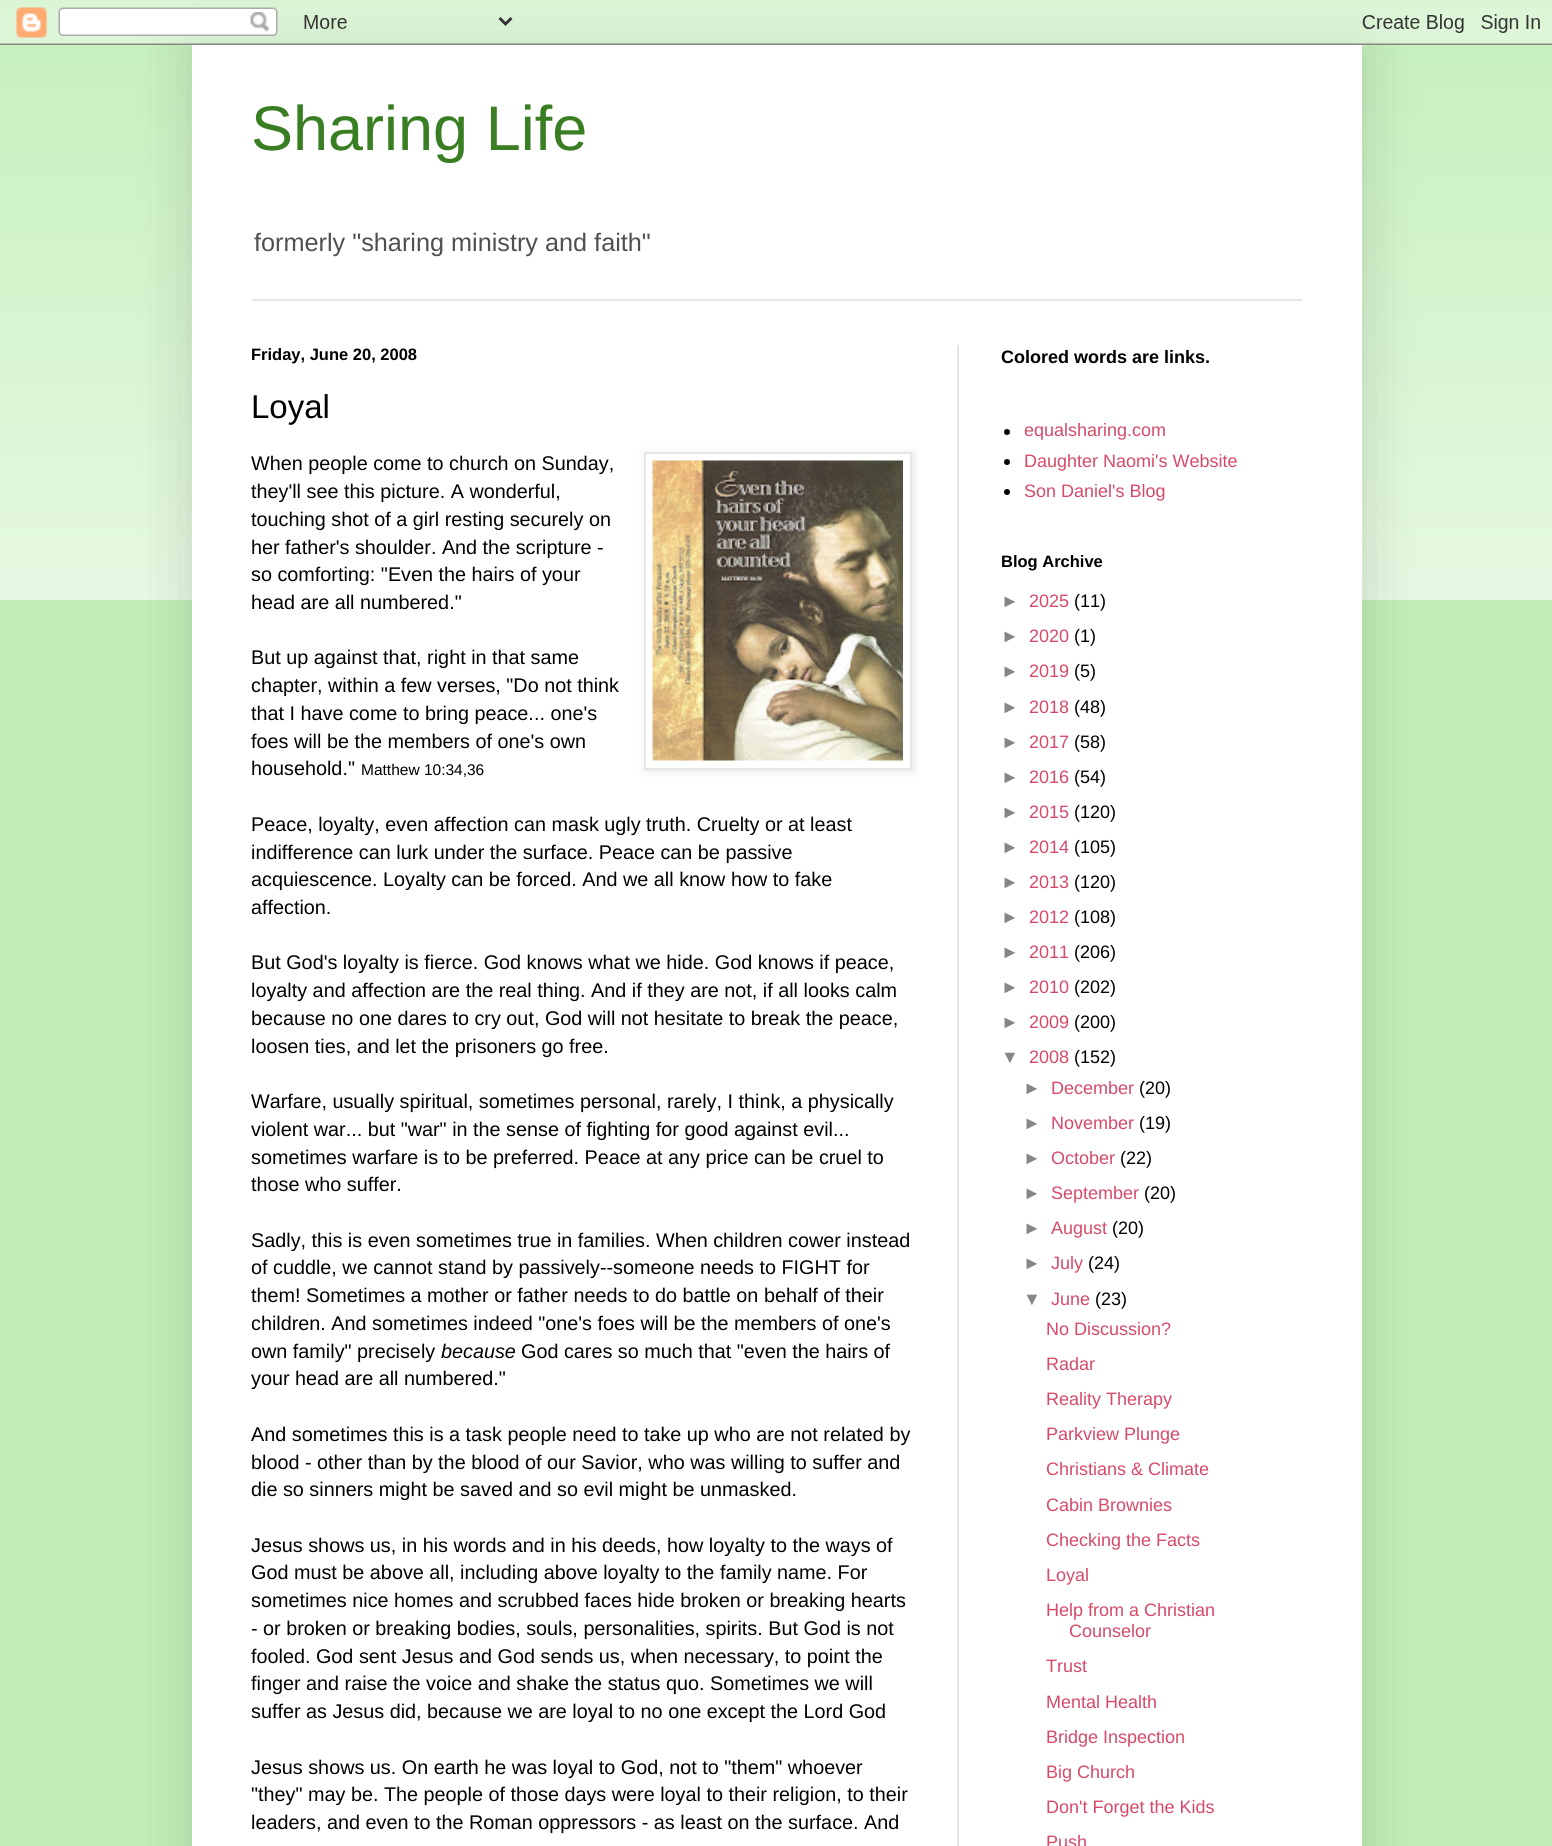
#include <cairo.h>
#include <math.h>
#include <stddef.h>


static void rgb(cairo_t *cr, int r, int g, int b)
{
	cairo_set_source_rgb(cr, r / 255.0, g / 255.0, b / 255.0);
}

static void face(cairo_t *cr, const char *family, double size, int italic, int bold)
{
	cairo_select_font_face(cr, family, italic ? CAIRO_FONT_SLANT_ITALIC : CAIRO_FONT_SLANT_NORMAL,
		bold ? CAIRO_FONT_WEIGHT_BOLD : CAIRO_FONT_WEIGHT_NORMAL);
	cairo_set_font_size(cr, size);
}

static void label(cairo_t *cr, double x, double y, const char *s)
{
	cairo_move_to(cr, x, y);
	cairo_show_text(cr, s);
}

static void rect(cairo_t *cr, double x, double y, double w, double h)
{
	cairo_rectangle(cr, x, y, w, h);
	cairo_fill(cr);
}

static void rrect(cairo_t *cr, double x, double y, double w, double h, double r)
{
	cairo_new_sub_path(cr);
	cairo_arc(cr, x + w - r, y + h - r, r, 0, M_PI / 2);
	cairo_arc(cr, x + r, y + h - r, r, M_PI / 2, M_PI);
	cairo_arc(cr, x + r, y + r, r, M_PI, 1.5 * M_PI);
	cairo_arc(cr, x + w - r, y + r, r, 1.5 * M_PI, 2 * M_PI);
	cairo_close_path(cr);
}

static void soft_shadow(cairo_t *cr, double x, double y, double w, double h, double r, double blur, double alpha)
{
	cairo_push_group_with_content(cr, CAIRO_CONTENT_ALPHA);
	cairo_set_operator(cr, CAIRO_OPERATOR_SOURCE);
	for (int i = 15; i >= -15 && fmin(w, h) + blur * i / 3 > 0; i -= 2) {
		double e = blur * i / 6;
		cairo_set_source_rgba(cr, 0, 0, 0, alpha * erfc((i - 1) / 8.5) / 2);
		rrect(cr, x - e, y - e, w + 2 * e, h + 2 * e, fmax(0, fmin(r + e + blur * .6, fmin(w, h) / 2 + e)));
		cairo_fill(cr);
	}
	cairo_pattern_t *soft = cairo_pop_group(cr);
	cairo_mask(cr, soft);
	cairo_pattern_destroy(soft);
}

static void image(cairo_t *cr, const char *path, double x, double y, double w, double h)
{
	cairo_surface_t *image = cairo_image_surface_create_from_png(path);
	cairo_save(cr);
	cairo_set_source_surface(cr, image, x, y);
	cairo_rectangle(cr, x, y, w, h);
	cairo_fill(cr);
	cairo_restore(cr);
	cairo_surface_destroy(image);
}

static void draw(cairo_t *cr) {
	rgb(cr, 193, 239, 183);
	cairo_paint(cr);
	image(cr, "image1.png", 0, 6, 1552, 594);
	rgb(cr, 0, 0, 0);
	soft_shadow(cr, 192, 45, 1170, 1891, 0, 30, 0.15);
	image(cr, "image0.png", 0, 0, 1552, 45);
	rgb(cr, 255, 255, 255);
	rect(cr, 192, 45, 1170, 1801);
	face(cr, "Liberation Sans", 63, 0, 0);
	rgb(cr, 57, 126, 34);
	label(cr, 251, 150, "Sharing Life");
	face(cr, "Liberation Sans", 25.25, 0, 0);
	rgb(cr, 80, 80, 80);
	label(cr, 254, 251, "formerly \"sharing ministry and faith\"");
	rgb(cr, 230, 230, 230);
	rect(cr, 252, 299, 1050, 2);
	rect(cr, 957, 345, 2, 1501);
	face(cr, "Liberation Sans", 16.5, 0, 1);
	rgb(cr, 0, 0, 0);
	label(cr, 251, 360, "Friday, June 20, 2008");
	face(cr, "Liberation Sans", 33, 0, 0);
	label(cr, 251, 418, "Loyal");
	face(cr, "Liberation Sans", 19.8, 0, 0);
	label(cr, 251, 470, "When people come to church on Sunday,");
	rgb(cr, 0, 0, 0);
	soft_shadow(cr, 645, 453, 269, 318, 0, 4, 0.1);
	rgb(cr, 255, 255, 255);
	cairo_rectangle(cr, 645, 453, 266, 316);
	cairo_fill_preserve(cr);
	rgb(cr, 230, 230, 230);
	cairo_stroke(cr);
	image(cr, "image2.png", 652, 460, 251, 301);
	rgb(cr, 0, 0, 0);
	label(cr, 251, 498, "they'll see this picture. A wonderful,");
	label(cr, 251, 526, "touching shot of a girl resting securely on");
	label(cr, 251, 554, "her father's shoulder. And the scripture -");
	label(cr, 251, 581, "so comforting: \"Even the hairs of your");
	label(cr, 251, 609, "head are all numbered.\"");
	label(cr, 251, 664, "But up against that, right in that same");
	label(cr, 251, 692, "chapter, within a few verses, \"Do not think");
	label(cr, 251, 720, "that I have come to bring peace... one's");
	label(cr, 251, 748, "foes will be the members of one's own");
	label(cr, 251, 775, "household.\"");
	face(cr, "Liberation Sans", 15.5, 0, 0);
	label(cr, 361, 775, "Matthew 10:34,36");
	face(cr, "Liberation Sans", 19.8, 0, 0);
	label(cr, 251, 831, "Peace, loyalty, even affection can mask ugly truth. Cruelty or at least");
	label(cr, 251, 859, "indifference can lurk under the surface. Peace can be passive");
	label(cr, 251, 886, "acquiescence. Loyalty can be forced. And we all know how to fake");
	label(cr, 251, 914, "affection.");
	label(cr, 251, 969, "But God's loyalty is fierce. God knows what we hide. God knows if peace,");
	label(cr, 251, 997, "loyalty and affection are the real thing. And if they are not, if all looks calm");
	label(cr, 251, 1025, "because no one dares to cry out, God will not hesitate to break the peace,");
	label(cr, 251, 1053, "loosen ties, and let the prisoners go free.");
	label(cr, 251, 1108, "Warfare, usually spiritual, sometimes personal, rarely, I think, a physically");
	label(cr, 251, 1136, "violent war... but \"war\" in the sense of fighting for good against evil...");
	label(cr, 251, 1164, "sometimes warfare is to be preferred. Peace at any price can be cruel to");
	label(cr, 251, 1191, "those who suffer.");
	label(cr, 251, 1247, "Sadly, this is even sometimes true in families. When children cower instead");
	label(cr, 251, 1274, "of cuddle, we cannot stand by passively--someone needs to FIGHT for");
	label(cr, 251, 1302, "them! Sometimes a mother or father needs to do battle on behalf of their");
	label(cr, 251, 1330, "children. And sometimes indeed \"one's foes will be the members of one's");
	label(cr, 251, 1358, "own family\" precisely");
	face(cr, "Liberation Sans", 19.8, 1, 0);
	label(cr, 441, 1358, "because");
	face(cr, "Liberation Sans", 19.8, 0, 0);
	label(cr, 521, 1358, "God cares so much that \"even the hairs of");
	label(cr, 251, 1385, "your head are all numbered.\"");
	label(cr, 251, 1441, "And sometimes this is a task people need to take up who are not related by");
	label(cr, 251, 1469, "blood - other than by the blood of our Savior, who was willing to suffer and");
	label(cr, 251, 1496, "die so sinners might be saved and so evil might be unmasked.");
	label(cr, 251, 1552, "Jesus shows us, in his words and in his deeds, how loyalty to the ways of");
	label(cr, 251, 1579, "God must be above all, including above loyalty to the family name. For");
	label(cr, 251, 1607, "sometimes nice homes and scrubbed faces hide broken or breaking hearts");
	label(cr, 251, 1635, "- or broken or breaking bodies, souls, personalities, spirits. But God is not");
	label(cr, 251, 1663, "fooled. God sent Jesus and God sends us, when necessary, to point the");
	label(cr, 251, 1690, "finger and raise the voice and shake the status quo. Sometimes we will");
	label(cr, 251, 1718, "suffer as Jesus did, because we are loyal to no one except the Lord God");
	label(cr, 251, 1774, "Jesus shows us. On earth he was loyal to God, not to \"them\" whoever");
	label(cr, 251, 1801, "\"they\" may be. The people of those days were loyal to their religion, to their");
	label(cr, 251, 1829, "leaders, and even to the Roman oppressors - as least on the surface. And");
	face(cr, "Liberation Sans", 18, 0, 1);
	label(cr, 1001, 363, "Colored words are links.");
	cairo_new_path(cr);
	cairo_arc(cr, 1007, 432, 3, 0, 2 * M_PI);
	cairo_fill(cr);
	face(cr, "Liberation Sans", 18, 0, 0);
	rgb(cr, 214, 74, 104);
	label(cr, 1024, 436, "equalsharing.com");
	rgb(cr, 0, 0, 0);
	cairo_new_path(cr);
	cairo_arc(cr, 1007, 462, 3, 0, 2 * M_PI);
	cairo_fill(cr);
	rgb(cr, 214, 74, 104);
	label(cr, 1024, 467, "Daughter Naomi's Website");
	rgb(cr, 0, 0, 0);
	cairo_new_path(cr);
	cairo_arc(cr, 1007, 492, 3, 0, 2 * M_PI);
	cairo_fill(cr);
	rgb(cr, 214, 74, 104);
	label(cr, 1024, 497, "Son Daniel's Blog");
	face(cr, "Liberation Sans", 16.5, 0, 1);
	rgb(cr, 0, 0, 0);
	label(cr, 1001, 567, "Blog Archive");
	face(cr, "Liberation Sans", 18, 0, 0);
	rgb(cr, 134, 134, 134);
	label(cr, 1001, 607, "►");
	rgb(cr, 214, 74, 104);
	label(cr, 1029, 607, "2025");
	rgb(cr, 0, 0, 0);
	label(cr, 1074, 607, "(11)");
	rgb(cr, 134, 134, 134);
	label(cr, 1001, 642, "►");
	rgb(cr, 214, 74, 104);
	label(cr, 1029, 642, "2020");
	rgb(cr, 0, 0, 0);
	label(cr, 1074, 642, "(1)");
	rgb(cr, 134, 134, 134);
	label(cr, 1001, 677, "►");
	rgb(cr, 214, 74, 104);
	label(cr, 1029, 677, "2019");
	rgb(cr, 0, 0, 0);
	label(cr, 1074, 677, "(5)");
	rgb(cr, 134, 134, 134);
	label(cr, 1001, 713, "►");
	rgb(cr, 214, 74, 104);
	label(cr, 1029, 713, "2018");
	rgb(cr, 0, 0, 0);
	label(cr, 1074, 713, "(48)");
	rgb(cr, 134, 134, 134);
	label(cr, 1001, 748, "►");
	rgb(cr, 214, 74, 104);
	label(cr, 1029, 748, "2017");
	rgb(cr, 0, 0, 0);
	label(cr, 1074, 748, "(58)");
	rgb(cr, 134, 134, 134);
	label(cr, 1001, 783, "►");
	rgb(cr, 214, 74, 104);
	label(cr, 1029, 783, "2016");
	rgb(cr, 0, 0, 0);
	label(cr, 1074, 783, "(54)");
	rgb(cr, 134, 134, 134);
	label(cr, 1001, 818, "►");
	rgb(cr, 214, 74, 104);
	label(cr, 1029, 818, "2015");
	rgb(cr, 0, 0, 0);
	label(cr, 1074, 818, "(120)");
	rgb(cr, 134, 134, 134);
	label(cr, 1001, 853, "►");
	rgb(cr, 214, 74, 104);
	label(cr, 1029, 853, "2014");
	rgb(cr, 0, 0, 0);
	label(cr, 1074, 853, "(105)");
	rgb(cr, 134, 134, 134);
	label(cr, 1001, 888, "►");
	rgb(cr, 214, 74, 104);
	label(cr, 1029, 888, "2013");
	rgb(cr, 0, 0, 0);
	label(cr, 1074, 888, "(120)");
	rgb(cr, 134, 134, 134);
	label(cr, 1001, 923, "►");
	rgb(cr, 214, 74, 104);
	label(cr, 1029, 923, "2012");
	rgb(cr, 0, 0, 0);
	label(cr, 1074, 923, "(108)");
	rgb(cr, 134, 134, 134);
	label(cr, 1001, 958, "►");
	rgb(cr, 214, 74, 104);
	label(cr, 1029, 958, "2011");
	rgb(cr, 0, 0, 0);
	label(cr, 1074, 958, "(206)");
	rgb(cr, 134, 134, 134);
	label(cr, 1001, 993, "►");
	rgb(cr, 214, 74, 104);
	label(cr, 1029, 993, "2010");
	rgb(cr, 0, 0, 0);
	label(cr, 1074, 993, "(202)");
	rgb(cr, 134, 134, 134);
	label(cr, 1001, 1028, "►");
	rgb(cr, 214, 74, 104);
	label(cr, 1029, 1028, "2009");
	rgb(cr, 0, 0, 0);
	label(cr, 1074, 1028, "(200)");
	rgb(cr, 134, 134, 134);
	label(cr, 1001, 1063, "▼");
	rgb(cr, 214, 74, 104);
	label(cr, 1029, 1063, "2008");
	rgb(cr, 0, 0, 0);
	label(cr, 1074, 1063, "(152)");
	rgb(cr, 134, 134, 134);
	label(cr, 1023, 1094, "►");
	rgb(cr, 214, 74, 104);
	label(cr, 1051, 1094, "December");
	rgb(cr, 0, 0, 0);
	label(cr, 1139, 1094, "(20)");
	rgb(cr, 134, 134, 134);
	label(cr, 1023, 1129, "►");
	rgb(cr, 214, 74, 104);
	label(cr, 1051, 1129, "November");
	rgb(cr, 0, 0, 0);
	label(cr, 1139, 1129, "(19)");
	rgb(cr, 134, 134, 134);
	label(cr, 1023, 1164, "►");
	rgb(cr, 214, 74, 104);
	label(cr, 1051, 1164, "October");
	rgb(cr, 0, 0, 0);
	label(cr, 1120, 1164, "(22)");
	rgb(cr, 134, 134, 134);
	label(cr, 1023, 1199, "►");
	rgb(cr, 214, 74, 104);
	label(cr, 1051, 1199, "September");
	rgb(cr, 0, 0, 0);
	label(cr, 1144, 1199, "(20)");
	rgb(cr, 134, 134, 134);
	label(cr, 1023, 1234, "►");
	rgb(cr, 214, 74, 104);
	label(cr, 1051, 1234, "August");
	rgb(cr, 0, 0, 0);
	label(cr, 1112, 1234, "(20)");
	rgb(cr, 134, 134, 134);
	label(cr, 1023, 1269, "►");
	rgb(cr, 214, 74, 104);
	label(cr, 1051, 1269, "July");
	rgb(cr, 0, 0, 0);
	label(cr, 1088, 1269, "(24)");
	rgb(cr, 134, 134, 134);
	label(cr, 1023, 1305, "▼");
	rgb(cr, 214, 74, 104);
	label(cr, 1051, 1305, "June");
	rgb(cr, 0, 0, 0);
	label(cr, 1095, 1305, "(23)");
	rgb(cr, 214, 74, 104);
	label(cr, 1046, 1335, "No Discussion?");
	label(cr, 1046, 1370, "Radar");
	label(cr, 1046, 1405, "Reality Therapy");
	label(cr, 1046, 1440, "Parkview Plunge");
	label(cr, 1046, 1475, "Christians & Climate");
	label(cr, 1046, 1511, "Cabin Brownies");
	label(cr, 1046, 1546, "Checking the Facts");
	label(cr, 1046, 1581, "Loyal");
	label(cr, 1046, 1616, "Help from a Christian");
	label(cr, 1069, 1637, "Counselor");
	label(cr, 1046, 1672, "Trust");
	label(cr, 1046, 1708, "Mental Health");
	label(cr, 1046, 1743, "Bridge Inspection");
	label(cr, 1046, 1778, "Big Church");
	label(cr, 1046, 1813, "Don't Forget the Kids");
	label(cr, 1046, 1848, "Push");
}

int main(void) {
	cairo_surface_t *surface = cairo_image_surface_create(CAIRO_FORMAT_RGB24, 1552, 1846);
	cairo_t *cr = cairo_create(surface);
	cairo_font_options_t *options = cairo_font_options_create();
	cairo_font_options_set_hint_metrics(options, CAIRO_HINT_METRICS_OFF);
	cairo_font_options_set_hint_style(options, CAIRO_HINT_STYLE_NONE);
	cairo_set_font_options(cr, options);
	cairo_set_miter_limit(cr, 4);
	draw(cr);
	cairo_surface_write_to_png(surface, "render.png");
	cairo_font_options_destroy(options);
	cairo_destroy(cr);
	cairo_surface_destroy(surface);
	return 0;
}
